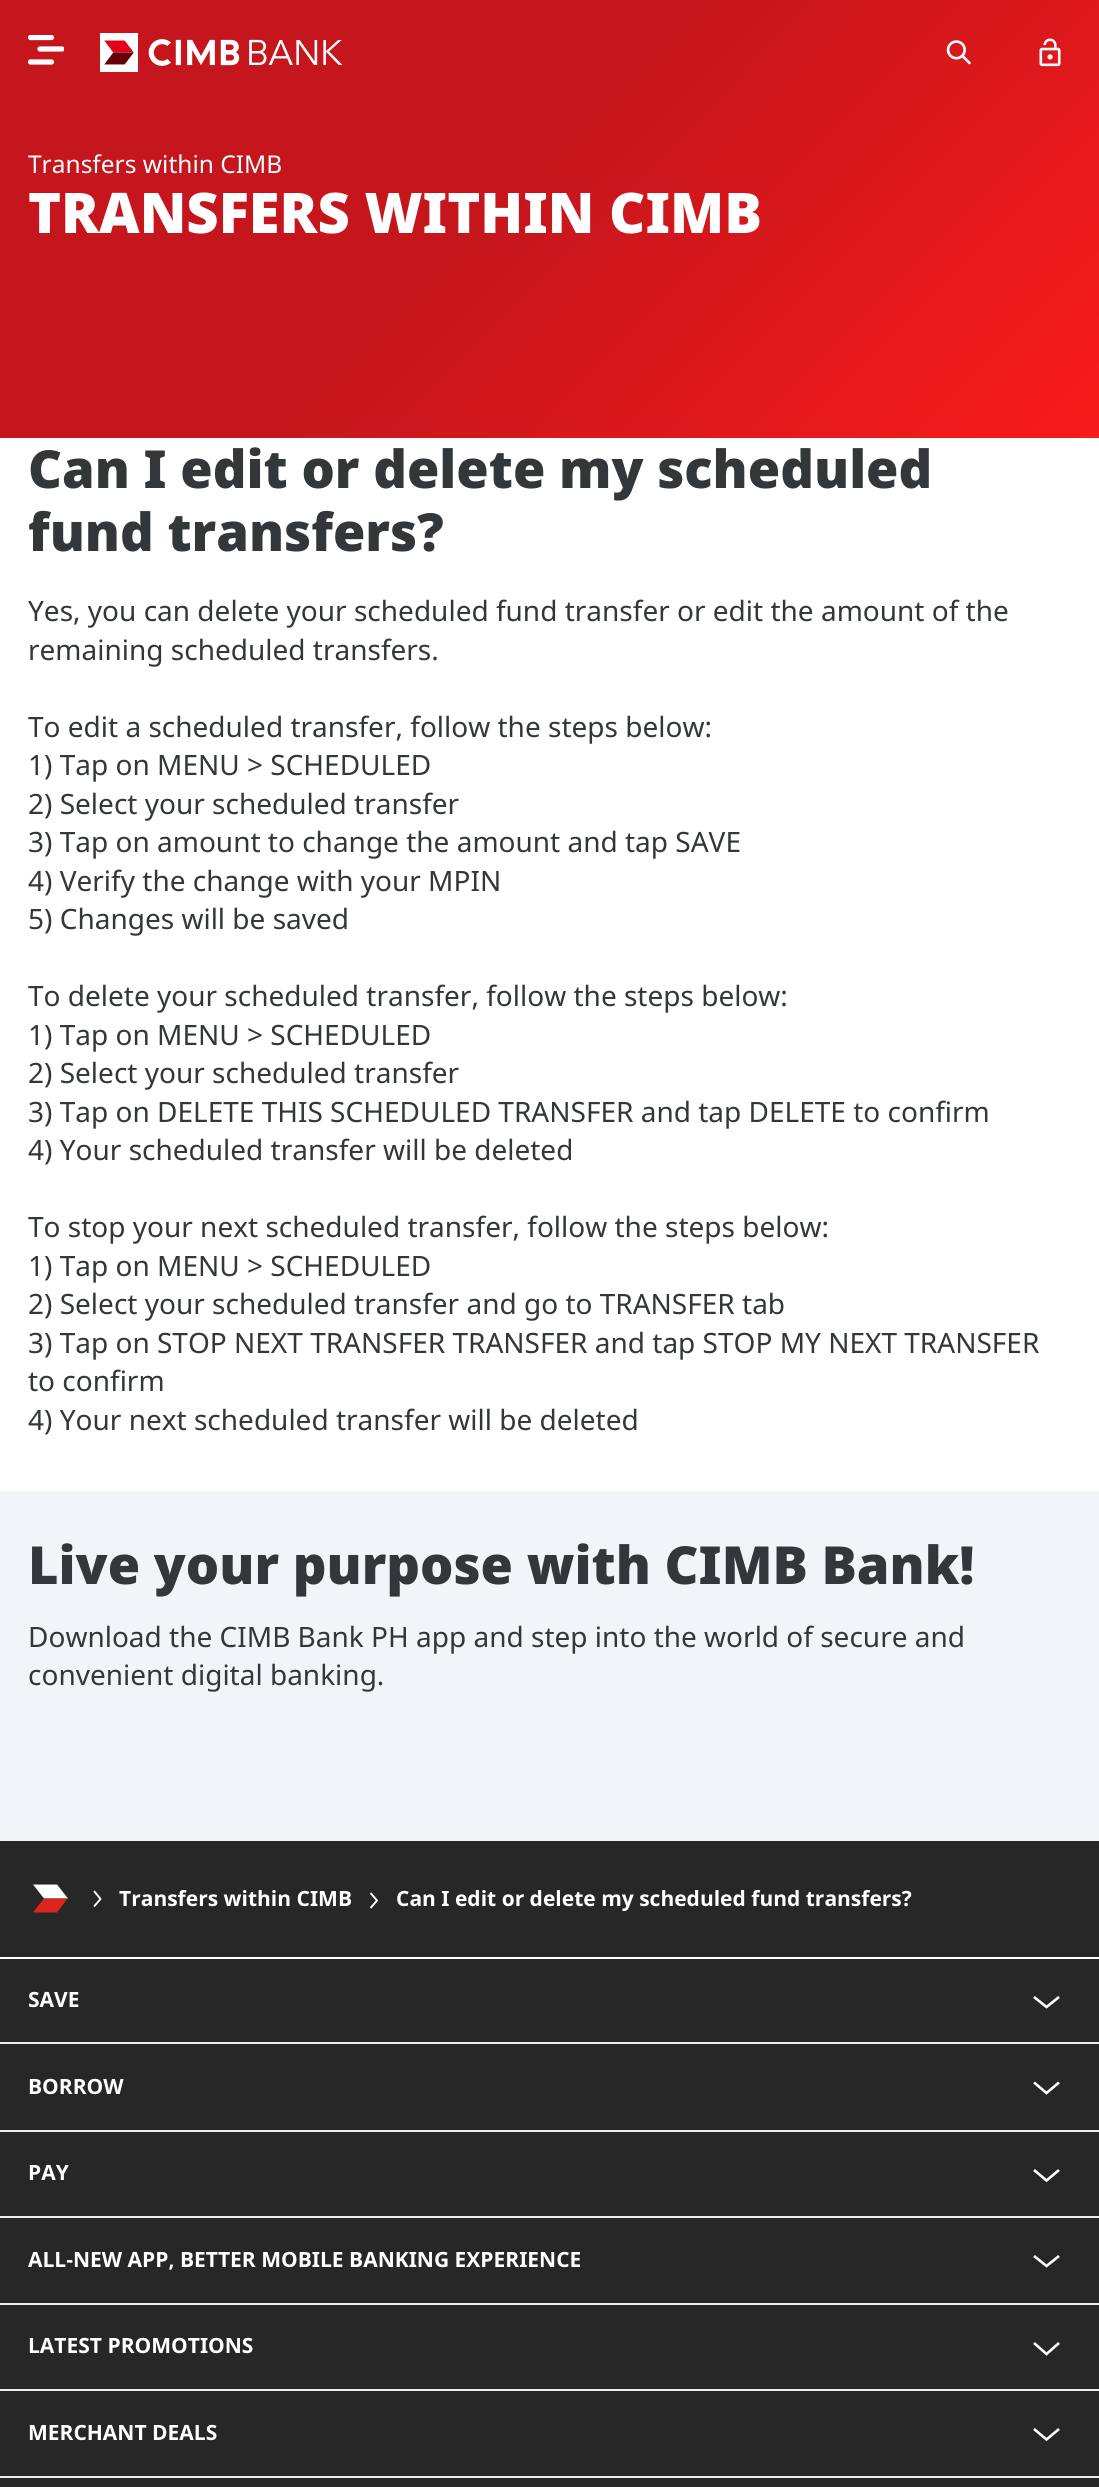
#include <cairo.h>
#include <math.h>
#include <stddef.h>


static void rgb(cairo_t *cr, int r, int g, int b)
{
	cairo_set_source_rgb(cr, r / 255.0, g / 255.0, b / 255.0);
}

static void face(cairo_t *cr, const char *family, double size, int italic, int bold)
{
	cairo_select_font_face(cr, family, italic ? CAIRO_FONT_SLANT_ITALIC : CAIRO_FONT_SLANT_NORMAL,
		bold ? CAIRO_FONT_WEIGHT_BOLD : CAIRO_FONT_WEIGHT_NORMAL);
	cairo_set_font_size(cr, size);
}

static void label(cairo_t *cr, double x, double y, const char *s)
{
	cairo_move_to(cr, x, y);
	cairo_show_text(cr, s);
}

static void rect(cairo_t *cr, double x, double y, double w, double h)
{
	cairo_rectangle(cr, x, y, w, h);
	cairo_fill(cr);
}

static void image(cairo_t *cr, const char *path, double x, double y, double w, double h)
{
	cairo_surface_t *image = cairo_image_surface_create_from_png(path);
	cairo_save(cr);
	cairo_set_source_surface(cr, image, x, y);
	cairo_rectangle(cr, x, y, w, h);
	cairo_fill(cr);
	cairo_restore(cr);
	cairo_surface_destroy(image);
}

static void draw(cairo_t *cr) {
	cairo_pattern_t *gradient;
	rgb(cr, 255, 255, 255);
	cairo_paint(cr);
	gradient = cairo_pattern_create_linear(972, 641, 165, -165);
	cairo_pattern_add_color_stop_rgba(gradient, 0, 0.996, 0.106, 0.106, 1);
	cairo_pattern_add_color_stop_rgba(gradient, 0.57, 0.769, 0.086, 0.11, 1);
	cairo_set_source(cr, gradient);
	cairo_pattern_destroy(gradient);
	rect(cr, 0, 0, 1099, 438);
	cairo_save(cr);
	cairo_rectangle(cr, 28, 35, 36, 30);
	cairo_clip(cr);
	cairo_new_path(cr);
	cairo_move_to(cr, 40, 49);
	cairo_line_to(cr, 62, 49);
	rgb(cr, 255, 255, 255);
	cairo_set_line_width(cr, 5.2);
	cairo_set_line_cap(cr, CAIRO_LINE_CAP_ROUND);
	cairo_stroke(cr);
	cairo_restore(cr);
	cairo_new_path(cr);
	cairo_move_to(cr, 51.5, 62);
	cairo_line_to(cr, 30.5, 62);
	rgb(cr, 255, 255, 255);
	cairo_set_line_width(cr, 5.2);
	cairo_set_line_cap(cr, CAIRO_LINE_CAP_ROUND);
	cairo_stroke(cr);
	cairo_save(cr);
	cairo_rectangle(cr, 28, 35, 36, 30);
	cairo_clip(cr);
	cairo_new_path(cr);
	cairo_move_to(cr, 51.5, 37.5);
	cairo_line_to(cr, 30.5, 37.5);
	cairo_stroke(cr);
	cairo_restore(cr);
	image(cr, "image0.png", 100, 33, 243, 39);
	image(cr, "image1.png", 946, 40, 25, 25);
	image(cr, "image2.png", 1039, 38, 22, 29);
	face(cr, "Noto Sans", 24.5, 0, 0);
	label(cr, 28, 173, "Transfers within CIMB");
	face(cr, "Noto Sans Black", 56, 0, 0);
	label(cr, 28, 233, "TRANSFERS WITHIN CIMB");
	face(cr, "Noto Sans Black", 52.5, 0, 0);
	rgb(cr, 51, 55, 57);
	label(cr, 28, 488, "Can I edit or delete my scheduled");
	label(cr, 28, 551, "fund transfers?");
	face(cr, "Noto Sans", 28, 0, 0);
	label(cr, 28, 621, "Yes, you can delete your scheduled fund transfer or edit the amount of the");
	label(cr, 28, 660, "remaining scheduled transfers.");
	label(cr, 28, 737, "To edit a scheduled transfer, follow the steps below:");
	label(cr, 28, 775, "1) Tap on MENU > SCHEDULED");
	label(cr, 28, 814, "2) Select your scheduled transfer");
	label(cr, 28, 852, "3) Tap on amount to change the amount and tap SAVE");
	label(cr, 28, 891, "4) Verify the change with your MPIN");
	label(cr, 28, 929, "5) Changes will be saved");
	label(cr, 28, 1006, "To delete your scheduled transfer, follow the steps below:");
	label(cr, 28, 1045, "1) Tap on MENU > SCHEDULED");
	label(cr, 28, 1083, "2) Select your scheduled transfer");
	label(cr, 28, 1122, "3) Tap on DELETE THIS SCHEDULED TRANSFER and tap DELETE to confirm");
	label(cr, 28, 1160, "4) Your scheduled transfer will be deleted");
	label(cr, 28, 1237, "To stop your next scheduled transfer, follow the steps below:");
	label(cr, 28, 1276, "1) Tap on MENU > SCHEDULED");
	label(cr, 28, 1314, "2) Select your scheduled transfer and go to TRANSFER tab");
	label(cr, 28, 1353, "3) Tap on STOP NEXT TRANSFER TRANSFER and tap STOP MY NEXT TRANSFER");
	label(cr, 28, 1391, "to confirm");
	label(cr, 28, 1430, "4) Your next scheduled transfer will be deleted");
	rgb(cr, 243, 244, 250);
	rect(cr, 0, 1491, 1099, 350);
	face(cr, "Noto Sans Black", 52.5, 0, 0);
	rgb(cr, 51, 55, 57);
	label(cr, 28, 1584, "Live your purpose with CIMB Bank!");
	face(cr, "Noto Sans", 28, 0, 0);
	label(cr, 28, 1647, "Download the CIMB Bank PH app and step into the world of secure and");
	label(cr, 28, 1685, "convenient digital banking.");
	rgb(cr, 39, 39, 39);
	rect(cr, 0, 1841, 1099, 646);
	rgb(cr, 255, 255, 255);
	rect(cr, 0, 1957, 1099, 2);
	cairo_new_path(cr);
	cairo_move_to(cr, 57, 1884.5);
	cairo_line_to(cr, 33, 1884.5);
	cairo_line_to(cr, 44, 1898.5);
	cairo_line_to(cr, 68, 1898.5);
	cairo_close_path(cr);
	cairo_fill(cr);
	rgb(cr, 220, 36, 31);
	cairo_new_path(cr);
	cairo_move_to(cr, 67.5, 1898.5);
	cairo_line_to(cr, 44, 1898.5);
	cairo_line_to(cr, 33, 1912.5);
	cairo_line_to(cr, 57, 1912.5);
	cairo_close_path(cr);
	cairo_fill(cr);
	cairo_new_path(cr);
	cairo_move_to(cr, 94, 1906.5);
	cairo_line_to(cr, 100.5, 1899);
	cairo_line_to(cr, 94, 1891);
	rgb(cr, 255, 255, 255);
	cairo_set_line_width(cr, 1.9);
	cairo_set_line_cap(cr, CAIRO_LINE_CAP_BUTT);
	cairo_stroke(cr);
	face(cr, "Noto Sans", 21, 0, 1);
	label(cr, 119, 1906, "Transfers within CIMB");
	cairo_new_path(cr);
	cairo_move_to(cr, 370.5, 1908);
	cairo_line_to(cr, 377, 1900.5);
	cairo_line_to(cr, 370.5, 1893);
	cairo_stroke(cr);
	label(cr, 396, 1906, "Can I edit or delete my scheduled fund transfers?");
	rgb(cr, 237, 237, 237);
	rect(cr, 0, 2042, 1099, 2);
	rgb(cr, 255, 255, 255);
	label(cr, 28, 2007, "SAVE");
	cairo_new_path(cr);
	cairo_move_to(cr, 1059, 1997);
	cairo_line_to(cr, 1046.5, 2007);
	cairo_line_to(cr, 1034, 1997);
	cairo_set_line_width(cr, 2.6);
	cairo_stroke(cr);
	rgb(cr, 237, 237, 237);
	rect(cr, 0, 2130, 1099, 2);
	rgb(cr, 255, 255, 255);
	label(cr, 28, 2094, "BORROW");
	cairo_new_path(cr);
	cairo_move_to(cr, 1059, 2082.5);
	cairo_line_to(cr, 1046.5, 2093);
	cairo_line_to(cr, 1034, 2082.5);
	cairo_stroke(cr);
	rgb(cr, 237, 237, 237);
	rect(cr, 0, 2216, 1099, 2);
	rgb(cr, 255, 255, 255);
	label(cr, 28, 2180, "PAY");
	cairo_new_path(cr);
	cairo_move_to(cr, 1059, 2170);
	cairo_line_to(cr, 1046.5, 2180.5);
	cairo_line_to(cr, 1034, 2170);
	cairo_stroke(cr);
	rgb(cr, 237, 237, 237);
	rect(cr, 0, 2303, 1099, 2);
	rgb(cr, 255, 255, 255);
	label(cr, 28, 2267, "ALL-NEW APP, BETTER MOBILE BANKING EXPERIENCE");
	cairo_new_path(cr);
	cairo_move_to(cr, 1059, 2256);
	cairo_line_to(cr, 1046.5, 2266);
	cairo_line_to(cr, 1034, 2256);
	cairo_stroke(cr);
	rgb(cr, 237, 237, 237);
	rect(cr, 0, 2389, 1099, 2);
	rgb(cr, 255, 255, 255);
	label(cr, 28, 2353, "LATEST PROMOTIONS");
	cairo_new_path(cr);
	cairo_move_to(cr, 1059, 2343);
	cairo_line_to(cr, 1046.5, 2354);
	cairo_line_to(cr, 1034, 2343);
	cairo_stroke(cr);
	rgb(cr, 237, 237, 237);
	rect(cr, 0, 2476, 1099, 2);
	rgb(cr, 255, 255, 255);
	label(cr, 28, 2440, "MERCHANT DEALS");
	cairo_new_path(cr);
	cairo_move_to(cr, 1059, 2429);
	cairo_line_to(cr, 1046.5, 2439.5);
	cairo_line_to(cr, 1034, 2429);
	cairo_stroke(cr);
}

int main(void) {
	cairo_surface_t *surface = cairo_image_surface_create(CAIRO_FORMAT_RGB24, 1099, 2487);
	cairo_t *cr = cairo_create(surface);
	cairo_font_options_t *options = cairo_font_options_create();
	cairo_font_options_set_hint_metrics(options, CAIRO_HINT_METRICS_OFF);
	cairo_font_options_set_hint_style(options, CAIRO_HINT_STYLE_NONE);
	cairo_set_font_options(cr, options);
	cairo_set_miter_limit(cr, 4);
	draw(cr);
	cairo_surface_write_to_png(surface, "render.png");
	cairo_font_options_destroy(options);
	cairo_destroy(cr);
	cairo_surface_destroy(surface);
	return 0;
}
